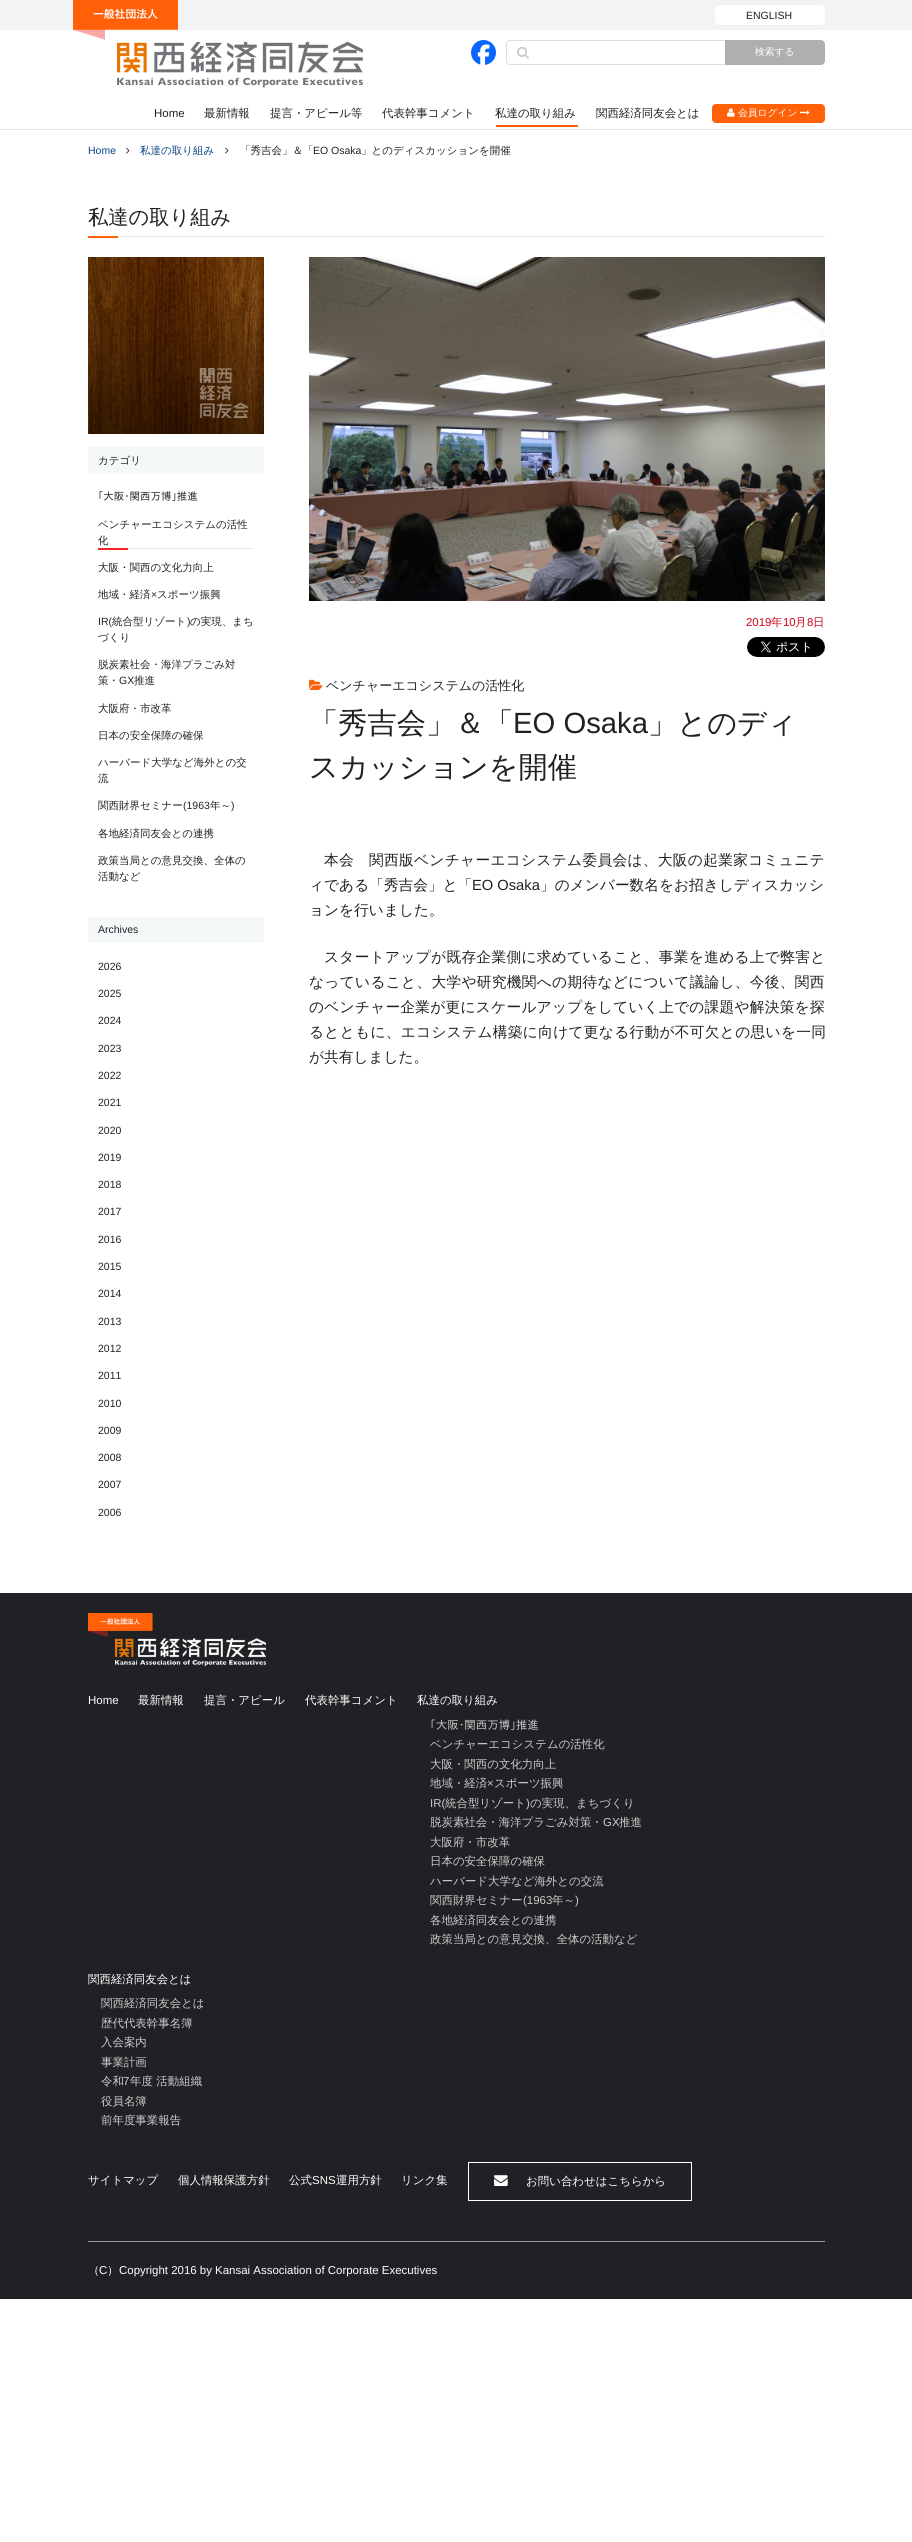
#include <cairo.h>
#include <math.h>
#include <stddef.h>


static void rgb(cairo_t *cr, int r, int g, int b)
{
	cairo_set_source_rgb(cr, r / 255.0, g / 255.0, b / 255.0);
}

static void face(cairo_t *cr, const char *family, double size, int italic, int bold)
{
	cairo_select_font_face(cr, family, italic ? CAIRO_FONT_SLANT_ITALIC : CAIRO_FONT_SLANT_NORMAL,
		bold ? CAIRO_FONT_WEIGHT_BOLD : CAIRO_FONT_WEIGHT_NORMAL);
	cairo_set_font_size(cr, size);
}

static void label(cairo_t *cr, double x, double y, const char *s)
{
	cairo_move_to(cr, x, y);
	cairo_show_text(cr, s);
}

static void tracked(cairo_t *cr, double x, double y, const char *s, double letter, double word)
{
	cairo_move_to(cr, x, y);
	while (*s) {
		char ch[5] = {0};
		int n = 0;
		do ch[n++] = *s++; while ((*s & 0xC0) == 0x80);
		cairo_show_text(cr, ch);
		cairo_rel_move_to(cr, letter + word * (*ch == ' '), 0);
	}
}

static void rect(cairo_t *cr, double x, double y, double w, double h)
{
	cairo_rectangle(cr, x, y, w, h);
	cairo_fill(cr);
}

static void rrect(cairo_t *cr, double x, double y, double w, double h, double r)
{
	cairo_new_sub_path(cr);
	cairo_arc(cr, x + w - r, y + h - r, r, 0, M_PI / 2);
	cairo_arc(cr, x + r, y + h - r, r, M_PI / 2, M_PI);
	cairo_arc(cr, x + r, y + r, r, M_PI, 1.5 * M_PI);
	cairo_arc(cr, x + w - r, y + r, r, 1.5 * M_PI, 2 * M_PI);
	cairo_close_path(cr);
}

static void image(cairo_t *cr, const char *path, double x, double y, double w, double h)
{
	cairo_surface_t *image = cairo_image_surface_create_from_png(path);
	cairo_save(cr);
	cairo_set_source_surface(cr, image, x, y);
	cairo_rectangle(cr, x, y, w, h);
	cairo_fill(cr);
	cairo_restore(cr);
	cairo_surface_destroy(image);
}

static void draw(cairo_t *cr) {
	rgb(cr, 255, 255, 255);
	cairo_paint(cr);
	rgb(cr, 233, 233, 233);
	rect(cr, 0, 129, 912, 1);
	rgb(cr, 242, 243, 244);
	rect(cr, 0, 0, 912, 30);
	image(cr, "image0.png", 73, 0, 290, 88);
	rgb(cr, 255, 255, 255);
	rrect(cr, 715, 5, 110, 20, 5);
	cairo_fill(cr);
	face(cr, "Liberation Sans", 10.5, 0, 0);
	rgb(cr, 32, 33, 36);
	label(cr, 746, 19, "ENGLISH");
	image(cr, "image1.png", 471, 40, 25, 25);
	rgb(cr, 222, 221, 222);
	cairo_set_fill_rule(cr, CAIRO_FILL_RULE_EVEN_ODD);
	cairo_new_path(cr);
	cairo_move_to(cr, 510, 40);
	cairo_line_to(cr, 529, 40);
	cairo_line_to(cr, 529, 65);
	cairo_line_to(cr, 510, 65);
	cairo_curve_to(cr, 508, 65, 506, 63, 506, 61);
	cairo_line_to(cr, 506, 44);
	cairo_curve_to(cr, 506, 42, 508, 40, 510, 40);
	cairo_close_path(cr);
	cairo_move_to(cr, 510, 41);
	cairo_line_to(cr, 529, 41);
	cairo_line_to(cr, 529, 64);
	cairo_line_to(cr, 510, 64);
	cairo_curve_to(cr, 508.5, 64, 507, 62.5, 507, 61);
	cairo_line_to(cr, 507, 44);
	cairo_curve_to(cr, 507, 42.5, 508.5, 41, 510, 41);
	cairo_close_path(cr);
	cairo_fill(cr);
	image(cr, "image2.png", 517, 46, 12, 13);
	rect(cr, 529, 40, 196, 1);
	rect(cr, 529, 64, 196, 1);
	rgb(cr, 176, 174, 176);
	cairo_new_path(cr);
	cairo_move_to(cr, 725, 40);
	cairo_line_to(cr, 821, 40);
	cairo_curve_to(cr, 823, 40, 825, 42, 825, 44);
	cairo_line_to(cr, 825, 61);
	cairo_curve_to(cr, 825, 63, 823, 65, 821, 65);
	cairo_line_to(cr, 725, 65);
	cairo_close_path(cr);
	cairo_fill(cr);
	face(cr, "WenQuanYi Zen Hei Medium", 9.75, 0, 0);
	rgb(cr, 255, 255, 255);
	label(cr, 755, 55, "検索する");
	face(cr, "Liberation Sans", 11.45, 0, 0);
	rgb(cr, 32, 33, 36);
	label(cr, 154, 117, "Home");
	face(cr, "WenQuanYi Zen Hei Medium", 11.45, 0, 0);
	label(cr, 204, 117, "最新情報");
	label(cr, 270, 117, "提言・アピール等");
	label(cr, 382, 117, "代表幹事コメント");
	label(cr, 495, 117, "私達の取り組み");
	label(cr, 596, 117, "関西経済同友会とは");
	rgb(cr, 255, 96, 8);
	rect(cr, 496, 125, 82, 2);
	rrect(cr, 712, 104, 113, 19, 4);
	cairo_fill(cr);
	image(cr, "image3.png", 727, 108, 8, 9);
	face(cr, "WenQuanYi Zen Hei Medium", 9.75, 0, 0);
	rgb(cr, 255, 255, 255);
	label(cr, 738, 116, "会員ログイン");
	image(cr, "image4.png", 800, 110, 10, 5);
	face(cr, "Liberation Sans", 10.5, 0, 0);
	rgb(cr, 9, 67, 135);
	label(cr, 88, 154, "Home");
	image(cr, "image5.png", 126, 147, 4, 7);
	face(cr, "WenQuanYi Zen Hei Medium", 10.5, 0, 0);
	label(cr, 140, 154, "私達の取り組み");
	image(cr, "image5.png", 225, 147, 4, 7);
	rgb(cr, 32, 33, 36);
	label(cr, 240, 154, "「秀吉会」＆「");
	face(cr, "Liberation Sans", 10.5, 0, 0);
	label(cr, 313, 154, "EO Osaka");
	face(cr, "WenQuanYi Zen Hei Medium", 10.5, 0, 0);
	label(cr, 361, 154, "」とのディスカッションを開催");
	rgb(cr, 233, 233, 233);
	rect(cr, 118, 236, 707, 1);
	face(cr, "WenQuanYi Zen Hei Medium", 20.25, 0, 0);
	rgb(cr, 32, 33, 36);
	label(cr, 88, 224, "私達の取り組み");
	rgb(cr, 255, 96, 8);
	rect(cr, 88, 236, 30, 2);
	image(cr, "image6.png", 88, 257, 176, 177);
	rgb(cr, 244, 248, 249);
	rect(cr, 88, 447, 176, 27);
	face(cr, "WenQuanYi Zen Hei Medium", 10.5, 0, 0);
	rgb(cr, 32, 33, 36);
	label(cr, 98, 464, "カテゴリ");
	face(cr, "IPAPGothic", 10.5, 0, 0);
	label(cr, 98, 500, "｢大阪･関西万博｣推進");
	rgb(cr, 233, 233, 233);
	rect(cr, 128, 548, 126, 1);
	face(cr, "WenQuanYi Zen Hei Medium", 10.5, 0, 0);
	rgb(cr, 32, 33, 36);
	label(cr, 98, 528, "ベンチャーエコシステムの活性");
	label(cr, 98, 544, "化");
	rgb(cr, 249, 37, 37);
	rect(cr, 98, 548, 30, 2);
	rgb(cr, 32, 33, 36);
	label(cr, 98, 571, "大阪・関西の文化力向上");
	label(cr, 98, 598, "地域・経済");
	face(cr, "Liberation Sans", 10.5, 0, 0);
	label(cr, 151, 598, "×");
	face(cr, "WenQuanYi Zen Hei Medium", 10.5, 0, 0);
	label(cr, 157, 598, "スポーツ振興");
	face(cr, "Liberation Sans", 10.5, 0, 0);
	label(cr, 98, 625, "IR(");
	face(cr, "WenQuanYi Zen Hei Medium", 10.5, 0, 0);
	label(cr, 112, 625, "統合型リゾート");
	face(cr, "Liberation Sans", 10.5, 0, 0);
	label(cr, 187, 625, ")");
	face(cr, "WenQuanYi Zen Hei Medium", 10.5, 0, 0);
	label(cr, 190, 625, "の実現、まち");
	label(cr, 98, 641, "づくり");
	label(cr, 98, 668, "脱炭素社会・海洋プラごみ対");
	label(cr, 98, 684, "策・");
	face(cr, "Liberation Sans", 10.5, 0, 0);
	label(cr, 119, 684, "GX");
	face(cr, "WenQuanYi Zen Hei Medium", 10.5, 0, 0);
	label(cr, 134, 684, "推進");
	label(cr, 98, 712, "大阪府・市改革");
	label(cr, 98, 739, "日本の安全保障の確保");
	label(cr, 98, 766, "ハーバード大学など海外との交");
	label(cr, 98, 782, "流");
	label(cr, 98, 809, "関西財界セミナー");
	face(cr, "Liberation Sans", 10.5, 0, 0);
	label(cr, 183, 809, "(1963");
	face(cr, "WenQuanYi Zen Hei Medium", 10.5, 0, 0);
	label(cr, 210, 809, "年～");
	face(cr, "Liberation Sans", 10.5, 0, 0);
	label(cr, 231, 809, ")");
	face(cr, "WenQuanYi Zen Hei Medium", 10.5, 0, 0);
	label(cr, 98, 837, "各地経済同友会との連携");
	label(cr, 98, 864, "政策当局との意見交換、全体の");
	label(cr, 98, 880, "活動など");
	rgb(cr, 244, 248, 249);
	rect(cr, 88, 917, 176, 26);
	face(cr, "Liberation Sans", 10.5, 0, 0);
	rgb(cr, 32, 33, 36);
	label(cr, 98, 933, "Archives");
	label(cr, 98, 970, "2026");
	label(cr, 98, 997, "2025");
	label(cr, 98, 1024, "2024");
	label(cr, 98, 1052, "2023");
	label(cr, 98, 1079, "2022");
	label(cr, 98, 1106, "2021");
	label(cr, 98, 1134, "2020");
	label(cr, 98, 1161, "2019");
	label(cr, 98, 1188, "2018");
	label(cr, 98, 1215, "2017");
	label(cr, 98, 1243, "2016");
	label(cr, 98, 1270, "2015");
	label(cr, 98, 1297, "2014");
	label(cr, 98, 1325, "2013");
	label(cr, 98, 1352, "2012");
	label(cr, 98, 1379, "2011");
	label(cr, 98, 1407, "2010");
	label(cr, 98, 1434, "2009");
	label(cr, 98, 1461, "2008");
	label(cr, 98, 1488, "2007");
	label(cr, 98, 1516, "2006");
	image(cr, "image7.png", 309, 257, 516, 344);
	face(cr, "Liberation Sans", 11.45, 0, 0);
	rgb(cr, 208, 2, 27);
	label(cr, 746, 626, "2019");
	face(cr, "WenQuanYi Zen Hei Medium", 11.45, 0, 0);
	label(cr, 771, 626, "年");
	face(cr, "Liberation Sans", 11.45, 0, 0);
	label(cr, 783, 626, "10");
	face(cr, "WenQuanYi Zen Hei Medium", 11.45, 0, 0);
	label(cr, 795, 626, "月");
	face(cr, "Liberation Sans", 11.45, 0, 0);
	label(cr, 807, 626, "8");
	face(cr, "WenQuanYi Zen Hei Medium", 11.45, 0, 0);
	label(cr, 813, 626, "日");
	image(cr, "image8.png", 747, 637, 78, 20);
	image(cr, "image9.png", 309, 679, 14, 11);
	face(cr, "WenQuanYi Zen Hei Medium", 13, 0, 0);
	rgb(cr, 32, 33, 36);
	label(cr, 326, 690, "ベンチャーエコシステムの活性化");
	face(cr, "WenQuanYi Zen Hei Medium", 29.25, 0, 0);
	label(cr, 309, 733, "「秀吉会」＆「");
	face(cr, "Liberation Sans", 29.25, 0, 0);
	label(cr, 513, 733, "EO Osaka");
	face(cr, "WenQuanYi Zen Hei Medium", 29.25, 0, 0);
	label(cr, 648, 733, "」とのディ");
	label(cr, 309, 777, "スカッションを開催");
	face(cr, "WenQuanYi Zen Hei Medium", 14.7, 0, 0);
	tracked(cr, 324, 865, "本会　関西版ベンチャーエコシステム委員会は、大阪の起業家コミュニテ", 0.3, 0);
	label(cr, 309, 890, "ィである「秀吉会」と「");
	face(cr, "Liberation Sans", 14.7, 0, 0);
	label(cr, 472, 890, "EO Osaka");
	face(cr, "WenQuanYi Zen Hei Medium", 14.7, 0, 0);
	label(cr, 540, 890, "」のメンバー数名をお招きしディスカッシ");
	label(cr, 309, 915, "ョンを行いました。");
	tracked(cr, 324, 962, "スタートアップが既存企業側に求めていること、事業を進める上で弊害と", 0.3, 0);
	tracked(cr, 309, 987, "なっていること、大学や研究機関への期待などについて議論し、今後、関西", 0.3, 0);
	tracked(cr, 309, 1012, "のベンチャー企業が更にスケールアップをしていく上での課題や解決策を探", 0.25, 0);
	tracked(cr, 309, 1037, "るとともに、エコシステム構築に向けて更なる行動が不可欠との思いを一同", 0.3, 0);
	label(cr, 309, 1062, "が共有しました。");
	rect(cr, 0, 1593, 912, 706);
	rgb(cr, 151, 151, 151);
	rect(cr, 88, 2241, 737, 1);
	image(cr, "image10.png", 88, 1613, 178, 54);
	face(cr, "Liberation Sans", 11.45, 0, 0);
	rgb(cr, 255, 255, 255);
	label(cr, 88, 1704, "Home");
	face(cr, "WenQuanYi Zen Hei Medium", 11.45, 0, 0);
	label(cr, 138, 1704, "最新情報");
	label(cr, 204, 1704, "提言・アピール");
	label(cr, 305, 1704, "代表幹事コメント");
	label(cr, 417, 1704, "私達の取り組み");
	face(cr, "IPAPGothic", 11.45, 0, 0);
	rgb(cr, 204, 204, 204);
	label(cr, 430, 1729, "｢大阪･関西万博｣推進");
	face(cr, "WenQuanYi Zen Hei Medium", 11.45, 0, 0);
	label(cr, 430, 1748, "ベンチャーエコシステムの活性化");
	label(cr, 430, 1768, "大阪・関西の文化力向上");
	label(cr, 430, 1787, "地域・経済");
	face(cr, "Liberation Sans", 11.45, 0, 0);
	label(cr, 487, 1787, "×");
	face(cr, "WenQuanYi Zen Hei Medium", 11.45, 0, 0);
	label(cr, 494, 1787, "スポーツ振興");
	face(cr, "Liberation Sans", 11.45, 0, 0);
	label(cr, 430, 1807, "IR(");
	face(cr, "WenQuanYi Zen Hei Medium", 11.45, 0, 0);
	label(cr, 445, 1807, "統合型リゾート");
	face(cr, "Liberation Sans", 11.45, 0, 0);
	label(cr, 526, 1807, ")");
	face(cr, "WenQuanYi Zen Hei Medium", 11.45, 0, 0);
	label(cr, 530, 1807, "の実現、まちづくり");
	label(cr, 430, 1826, "脱炭素社会・海洋プラごみ対策・");
	face(cr, "Liberation Sans", 11.45, 0, 0);
	label(cr, 603, 1826, "GX");
	face(cr, "WenQuanYi Zen Hei Medium", 11.45, 0, 0);
	label(cr, 619, 1826, "推進");
	label(cr, 430, 1846, "大阪府・市改革");
	label(cr, 430, 1865, "日本の安全保障の確保");
	label(cr, 430, 1885, "ハーバード大学など海外との交流");
	label(cr, 430, 1904, "関西財界セミナー");
	face(cr, "Liberation Sans", 11.45, 0, 0);
	label(cr, 523, 1904, "(1963");
	face(cr, "WenQuanYi Zen Hei Medium", 11.45, 0, 0);
	label(cr, 552, 1904, "年～");
	face(cr, "Liberation Sans", 11.45, 0, 0);
	label(cr, 575, 1904, ")");
	face(cr, "WenQuanYi Zen Hei Medium", 11.45, 0, 0);
	label(cr, 430, 1924, "各地経済同友会との連携");
	label(cr, 430, 1943, "政策当局との意見交換、全体の活動など");
	rgb(cr, 255, 255, 255);
	label(cr, 88, 1983, "関西経済同友会とは");
	rgb(cr, 204, 204, 204);
	label(cr, 101, 2007, "関西経済同友会とは");
	label(cr, 101, 2027, "歴代代表幹事名簿");
	label(cr, 101, 2046, "入会案内");
	label(cr, 101, 2066, "事業計画");
	label(cr, 101, 2085, "令和");
	face(cr, "Liberation Sans", 11.45, 0, 0);
	label(cr, 123, 2085, "7");
	face(cr, "WenQuanYi Zen Hei Medium", 11.45, 0, 0);
	label(cr, 130, 2085, "年度 活動組織");
	label(cr, 101, 2105, "役員名簿");
	label(cr, 101, 2124, "前年度事業報告");
	rgb(cr, 255, 255, 255);
	label(cr, 88, 2184, "サイトマップ");
	label(cr, 178, 2184, "個人情報保護方針");
	label(cr, 289, 2184, "公式");
	face(cr, "Liberation Sans", 11.45, 0, 0);
	label(cr, 312, 2184, "SNS");
	face(cr, "WenQuanYi Zen Hei Medium", 11.45, 0, 0);
	label(cr, 336, 2184, "運用方針");
	label(cr, 401, 2184, "リンク集");
	cairo_rectangle(cr, 468.5, 2162.5, 223, 38);
	cairo_set_line_width(cr, 1);
	cairo_stroke(cr);
	image(cr, "image11.png", 494, 2175, 14, 11);
	label(cr, 526, 2185, "お問い合わせはこちらから");
	label(cr, 88, 2274, "（");
	face(cr, "Liberation Sans", 11.45, 0, 0);
	label(cr, 99, 2274, "C");
	face(cr, "WenQuanYi Zen Hei Medium", 11.45, 0, 0);
	label(cr, 107, 2274, "）");
	face(cr, "Liberation Sans", 11.45, 0, 0);
	label(cr, 119, 2274, "Copyright 2016 by Kansai Association of Corporate Executives");
}

int main(void) {
	cairo_surface_t *surface = cairo_image_surface_create(CAIRO_FORMAT_RGB24, 912, 2542);
	cairo_t *cr = cairo_create(surface);
	cairo_font_options_t *options = cairo_font_options_create();
	cairo_font_options_set_hint_metrics(options, CAIRO_HINT_METRICS_OFF);
	cairo_font_options_set_hint_style(options, CAIRO_HINT_STYLE_NONE);
	cairo_set_font_options(cr, options);
	cairo_set_miter_limit(cr, 4);
	draw(cr);
	cairo_surface_write_to_png(surface, "render.png");
	cairo_font_options_destroy(options);
	cairo_destroy(cr);
	cairo_surface_destroy(surface);
	return 0;
}
